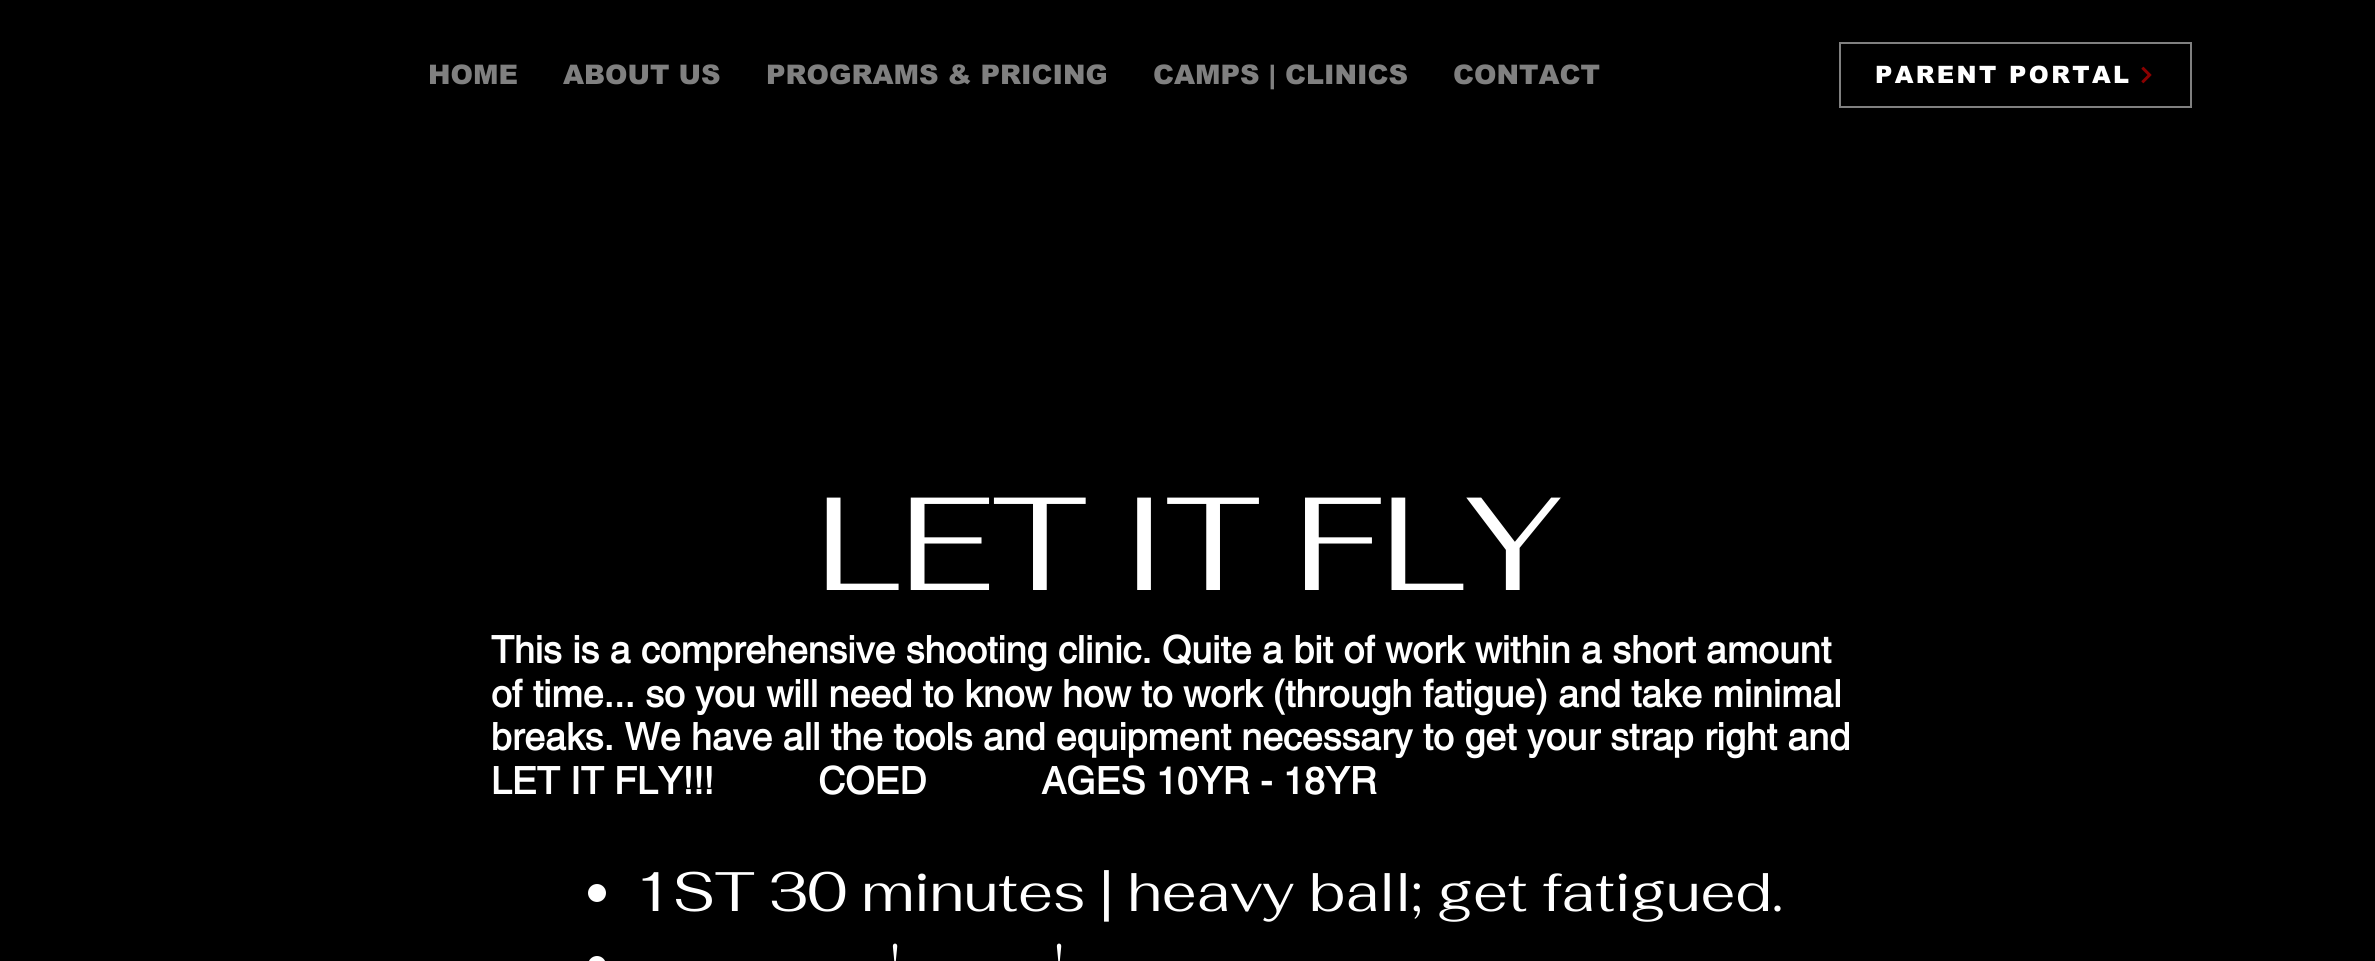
#include <cairo.h>
#include <math.h>
#include <stddef.h>


static void rgb(cairo_t *cr, int r, int g, int b)
{
	cairo_set_source_rgb(cr, r / 255.0, g / 255.0, b / 255.0);
}

static void face(cairo_t *cr, const char *family, double size, int italic, int bold)
{
	cairo_select_font_face(cr, family, italic ? CAIRO_FONT_SLANT_ITALIC : CAIRO_FONT_SLANT_NORMAL,
		bold ? CAIRO_FONT_WEIGHT_BOLD : CAIRO_FONT_WEIGHT_NORMAL);
	cairo_set_font_size(cr, size);
}

static void label(cairo_t *cr, double x, double y, const char *s)
{
	cairo_move_to(cr, x, y);
	cairo_show_text(cr, s);
}

static void tracked(cairo_t *cr, double x, double y, const char *s, double letter, double word)
{
	cairo_move_to(cr, x, y);
	while (*s) {
		char ch[5] = {0};
		int n = 0;
		do ch[n++] = *s++; while ((*s & 0xC0) == 0x80);
		cairo_show_text(cr, ch);
		cairo_rel_move_to(cr, letter + word * (*ch == ' '), 0);
	}
}

static void rrect(cairo_t *cr, double x, double y, double w, double h, double r)
{
	cairo_new_sub_path(cr);
	cairo_arc(cr, x + w - r, y + h - r, r, 0, M_PI / 2);
	cairo_arc(cr, x + r, y + h - r, r, M_PI / 2, M_PI);
	cairo_arc(cr, x + r, y + r, r, M_PI, 1.5 * M_PI);
	cairo_arc(cr, x + w - r, y + r, r, 1.5 * M_PI, 2 * M_PI);
	cairo_close_path(cr);
}

static void image(cairo_t *cr, const char *path, double x, double y, double w, double h)
{
	cairo_surface_t *image = cairo_image_surface_create_from_png(path);
	cairo_save(cr);
	cairo_set_source_surface(cr, image, x, y);
	cairo_rectangle(cr, x, y, w, h);
	cairo_fill(cr);
	cairo_restore(cr);
	cairo_surface_destroy(image);
}

static void draw(cairo_t *cr) {
	rgb(cr, 0, 0, 0);
	cairo_paint(cr);
	face(cr, "arial Black", 27, 0, 0);
	rgb(cr, 128, 128, 128);
	label(cr, 428, 84, "HOME");
	label(cr, 563, 84, "ABOUT US");
	label(cr, 766, 84, "PROGRAMS & PRICING");
	label(cr, 1153, 84, "CAMPS | CLINICS");
	label(cr, 1453, 84, "CONTACT");
	cairo_rectangle(cr, 1840, 43, 351, 64);
	cairo_stroke(cr);
	face(cr, "arial Black", 24, 0, 0);
	rgb(cr, 255, 255, 255);
	tracked(cr, 1875, 83, "PARENT PORTAL", 2.4, 0);
	image(cr, "image0.png", 2141, 66, 11, 18);
	face(cr, "Fahkwang", 132, 0, 0);
	label(cr, 817, 590, "LET IT FLY");
	face(cr, "helvetica", 37.5, 0, 1);
	label(cr, 491, 663, "This is a comprehensive shooting clinic. Quite a bit of work within a short amount");
	label(cr, 491, 707, "of time... so you will need to know how to work (through fatigue) and take minimal");
	label(cr, 491, 750, "breaks. We have all the tools and equipment necessary to get your strap right and");
	label(cr, 491, 794, "LET IT FLY!!!          COED           AGES 10YR - 18YR");
	cairo_new_path(cr);
	cairo_arc(cr, 597, 893, 9, 0, 2 * M_PI);
	cairo_fill(cr);
	face(cr, "Fahkwang", 55.5, 0, 0);
	label(cr, 634, 911, "1ST 30 minutes | heavy ball; get fatigued.");
	label(cr, 890, 983, "'");
	label(cr, 1054, 983, "'");
	rrect(cr, 588, 956, 18, 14, 9);
	cairo_fill(cr);
}

int main(void) {
	cairo_surface_t *surface = cairo_image_surface_create(CAIRO_FORMAT_RGB24, 2375, 961);
	cairo_t *cr = cairo_create(surface);
	cairo_font_options_t *options = cairo_font_options_create();
	cairo_font_options_set_hint_metrics(options, CAIRO_HINT_METRICS_OFF);
	cairo_font_options_set_hint_style(options, CAIRO_HINT_STYLE_NONE);
	cairo_set_font_options(cr, options);
	cairo_set_miter_limit(cr, 4);
	draw(cr);
	cairo_surface_write_to_png(surface, "render.png");
	cairo_font_options_destroy(options);
	cairo_destroy(cr);
	cairo_surface_destroy(surface);
	return 0;
}
